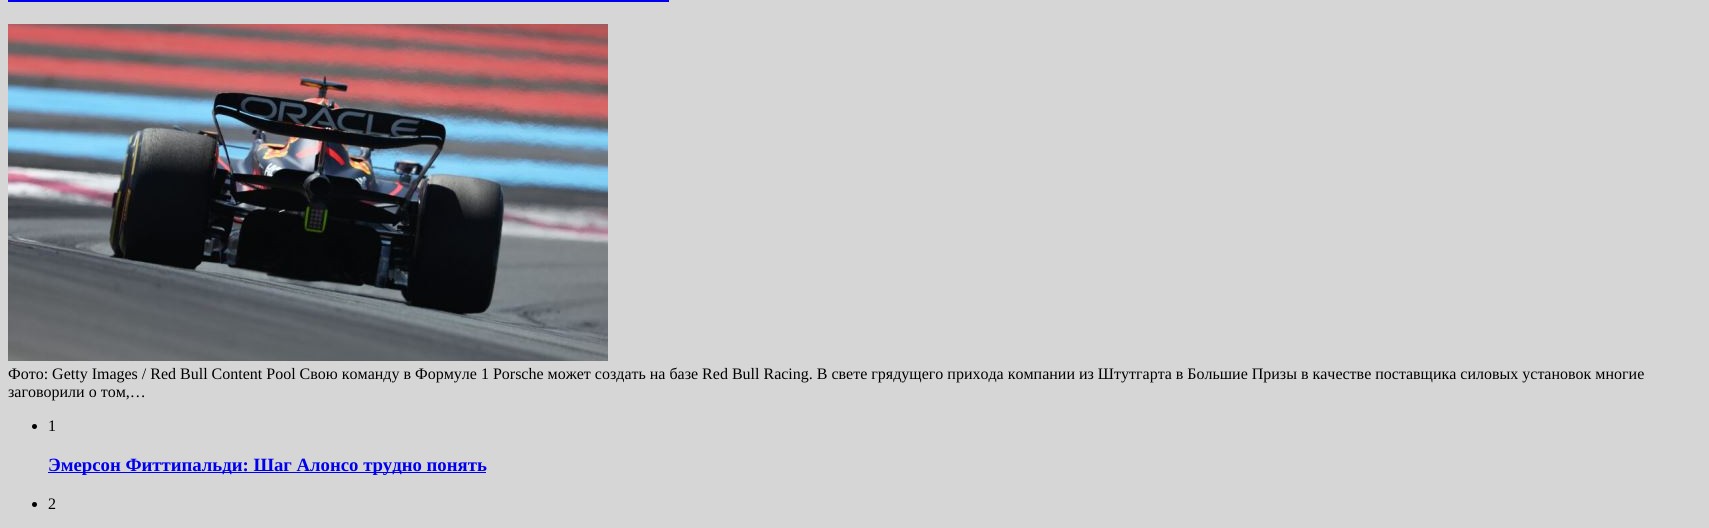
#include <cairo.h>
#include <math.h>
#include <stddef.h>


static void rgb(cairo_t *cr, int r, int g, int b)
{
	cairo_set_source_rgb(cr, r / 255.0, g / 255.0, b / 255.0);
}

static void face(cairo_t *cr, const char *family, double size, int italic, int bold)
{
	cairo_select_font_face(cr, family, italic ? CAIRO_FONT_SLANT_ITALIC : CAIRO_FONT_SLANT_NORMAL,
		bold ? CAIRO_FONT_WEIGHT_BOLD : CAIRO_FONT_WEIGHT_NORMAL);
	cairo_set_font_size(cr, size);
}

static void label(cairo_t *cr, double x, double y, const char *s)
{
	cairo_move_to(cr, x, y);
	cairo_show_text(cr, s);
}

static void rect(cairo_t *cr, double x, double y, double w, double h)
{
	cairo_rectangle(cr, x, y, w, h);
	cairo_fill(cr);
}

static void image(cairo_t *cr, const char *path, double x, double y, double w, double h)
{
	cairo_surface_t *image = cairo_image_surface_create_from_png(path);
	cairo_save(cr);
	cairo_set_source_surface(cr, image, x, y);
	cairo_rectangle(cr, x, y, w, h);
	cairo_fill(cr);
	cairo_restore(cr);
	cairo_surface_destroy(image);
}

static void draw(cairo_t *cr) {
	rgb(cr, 214, 214, 214);
	cairo_paint(cr);
	rgb(cr, 0, 0, 238);
	rect(cr, 8, 0, 661, 2);
	image(cr, "image0.png", 8, 24, 600, 337);
	face(cr, "Liberation Serif", 16, 0, 0);
	rgb(cr, 0, 0, 0);
	label(cr, 8, 379, "Фото: Getty Images / Red Bull Content Pool Свою команду в Формуле 1 Porsche может создать на базе Red Bull Racing. В свете грядущего прихода компании из Штутгарта в Большие Призы в качестве поставщика силовых установок многие");
	label(cr, 8, 397, "заговорили о том,…");
	cairo_new_path(cr);
	cairo_arc(cr, 34.5, 426.5, 2.5, 0, 2 * M_PI);
	cairo_fill(cr);
	label(cr, 48, 431, "1");
	rgb(cr, 0, 0, 238);
	rect(cr, 48, 472, 438, 1);
	face(cr, "Liberation Serif", 18.75, 0, 1);
	label(cr, 48, 471, "Эмерсон Фиттипальди: Шаг Алонсо трудно понять");
	rgb(cr, 0, 0, 0);
	cairo_new_path(cr);
	cairo_arc(cr, 34.5, 504.5, 2.5, 0, 2 * M_PI);
	cairo_fill(cr);
	face(cr, "Liberation Serif", 16, 0, 0);
	label(cr, 48, 509, "2");
}

int main(void) {
	cairo_surface_t *surface = cairo_image_surface_create(CAIRO_FORMAT_RGB24, 1709, 528);
	cairo_t *cr = cairo_create(surface);
	cairo_font_options_t *options = cairo_font_options_create();
	cairo_font_options_set_hint_metrics(options, CAIRO_HINT_METRICS_OFF);
	cairo_font_options_set_hint_style(options, CAIRO_HINT_STYLE_NONE);
	cairo_set_font_options(cr, options);
	cairo_set_miter_limit(cr, 4);
	draw(cr);
	cairo_surface_write_to_png(surface, "render.png");
	cairo_font_options_destroy(options);
	cairo_destroy(cr);
	cairo_surface_destroy(surface);
	return 0;
}
